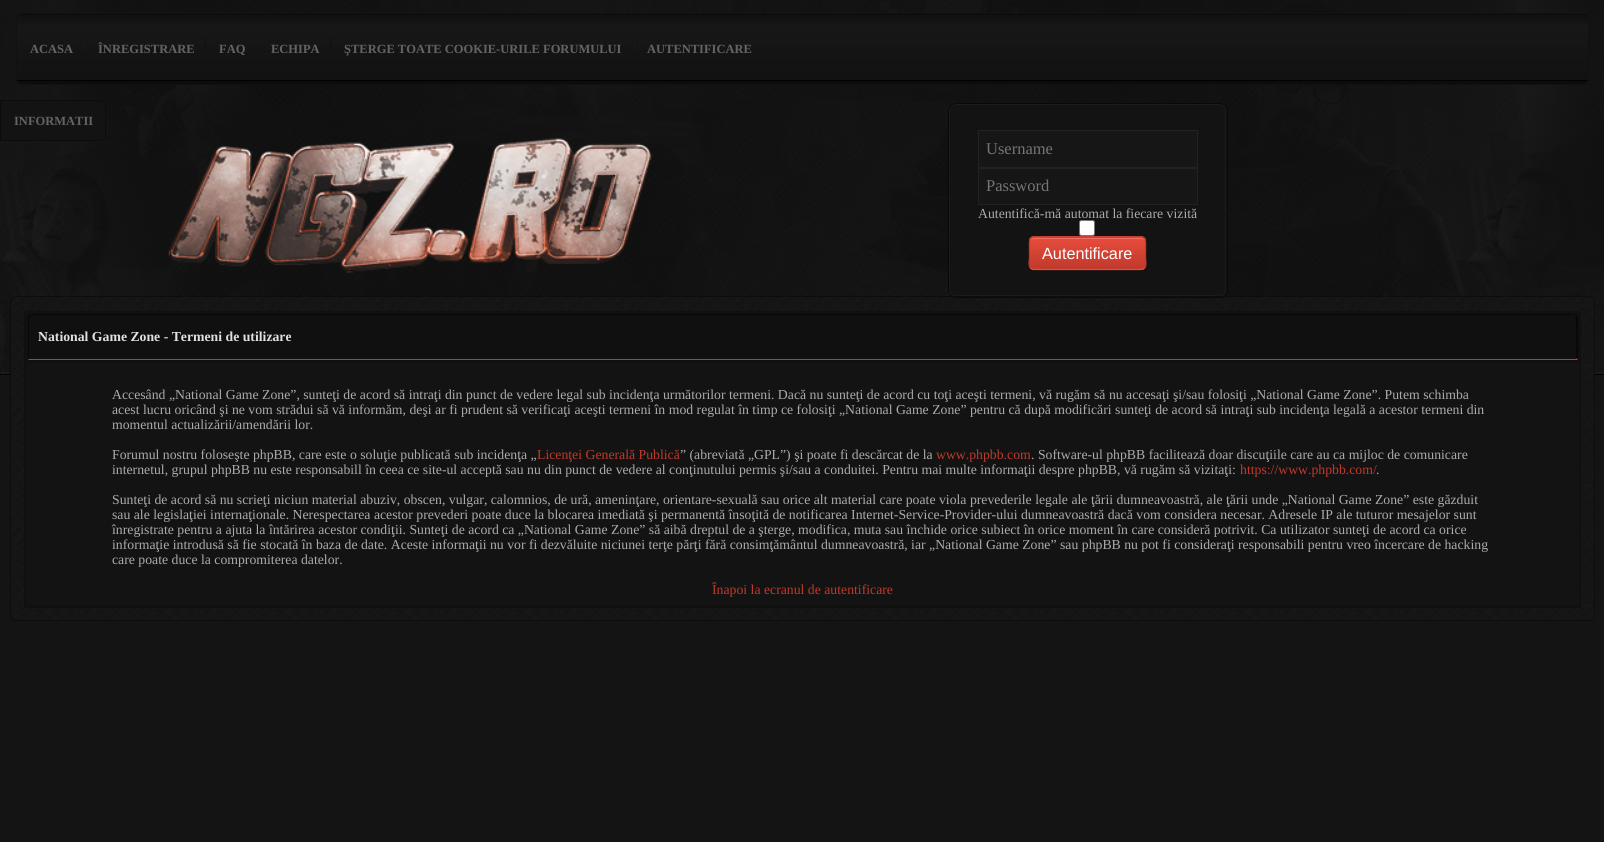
#include <cairo.h>
#include <math.h>
#include <stddef.h>


static void rgb(cairo_t *cr, int r, int g, int b)
{
	cairo_set_source_rgb(cr, r / 255.0, g / 255.0, b / 255.0);
}

static void face(cairo_t *cr, const char *family, double size, int italic, int bold)
{
	cairo_select_font_face(cr, family, italic ? CAIRO_FONT_SLANT_ITALIC : CAIRO_FONT_SLANT_NORMAL,
		bold ? CAIRO_FONT_WEIGHT_BOLD : CAIRO_FONT_WEIGHT_NORMAL);
	cairo_set_font_size(cr, size);
}

static void label(cairo_t *cr, double x, double y, const char *s)
{
	cairo_move_to(cr, x, y);
	cairo_show_text(cr, s);
}

static void rect(cairo_t *cr, double x, double y, double w, double h)
{
	cairo_rectangle(cr, x, y, w, h);
	cairo_fill(cr);
}

static void rrect(cairo_t *cr, double x, double y, double w, double h, double r)
{
	cairo_new_sub_path(cr);
	cairo_arc(cr, x + w - r, y + h - r, r, 0, M_PI / 2);
	cairo_arc(cr, x + r, y + h - r, r, M_PI / 2, M_PI);
	cairo_arc(cr, x + r, y + r, r, M_PI, 1.5 * M_PI);
	cairo_arc(cr, x + w - r, y + r, r, 1.5 * M_PI, 2 * M_PI);
	cairo_close_path(cr);
}

static void image(cairo_t *cr, const char *path, double x, double y, double w, double h)
{
	cairo_surface_t *image = cairo_image_surface_create_from_png(path);
	cairo_save(cr);
	cairo_set_source_surface(cr, image, x, y);
	cairo_rectangle(cr, x, y, w, h);
	cairo_fill(cr);
	cairo_restore(cr);
	cairo_surface_destroy(image);
}

static void draw(cairo_t *cr) {
	cairo_pattern_t *gradient;
	rgb(cr, 21, 20, 20);
	cairo_paint(cr);
	image(cr, "image0.png", 0, 0, 1604, 375);
	rgb(cr, 12, 12, 12);
	rrect(cr, 16, 13, 1573, 72, 6);
	cairo_fill(cr);
	image(cr, "image1.png", 16, 15, 1573, 66);
	rrect(cr, 16.5, 13.5, 1572, 71, 5.5);
	rgb(cr, 17, 17, 17);
	cairo_set_line_width(cr, 1);
	cairo_stroke(cr);
	face(cr, "Liberation Serif", 12.5, 0, 1);
	rgb(cr, 100, 100, 100);
	label(cr, 30, 53, "ACASA");
	rgb(cr, 26, 26, 26);
	rect(cr, 84, 42, 1, 8);
	rgb(cr, 100, 100, 100);
	label(cr, 98, 53, "ÎNREGISTRARE");
	image(cr, "image2.png", 205, 37, 1, 16);
	label(cr, 219, 53, "FAQ");
	label(cr, 271, 53, "ECHIPA");
	image(cr, "image2.png", 330, 37, 1, 16);
	label(cr, 344, 53, "ŞTERGE TOATE COOKIE-URILE FORUMULUI");
	rgb(cr, 26, 26, 26);
	rect(cr, 634, 42, 1, 8);
	rgb(cr, 100, 100, 100);
	label(cr, 647, 53, "AUTENTIFICARE");
	image(cr, "image3.png", 168, 138, 484, 135);
	rgb(cr, 19, 19, 19);
	rrect(cr, 949.5, 104.5, 276, 191, 5.5);
	cairo_fill_preserve(cr);
	rgb(cr, 27, 27, 27);
	cairo_stroke(cr);
	rgb(cr, 22, 22, 22);
	cairo_rectangle(cr, 978.5, 130.5, 219, 37);
	cairo_fill_preserve(cr);
	rgb(cr, 34, 34, 34);
	cairo_stroke(cr);
	rgb(cr, 22, 22, 22);
	cairo_rectangle(cr, 978.5, 168.5, 219, 36);
	cairo_fill_preserve(cr);
	rgb(cr, 34, 34, 34);
	cairo_stroke(cr);
	rgb(cr, 255, 255, 255);
	rrect(cr, 1079.5, 220.5, 15, 15, 2);
	cairo_fill_preserve(cr);
	rgb(cr, 118, 118, 118);
	cairo_stroke(cr);
	image(cr, "image4.png", 10, 297, 1585, 324);
	rrect(cr, 10.5, 296.5, 1584, 324, 5.5);
	rgb(cr, 13, 13, 13);
	cairo_stroke(cr);
	rrect(cr, 948.5, 103.5, 279, 194, 7.5);
	rgb(cr, 9, 9, 9);
	cairo_stroke(cr);
	face(cr, "Liberation Serif", 16.5, 0, 0);
	rgb(cr, 117, 117, 117);
	label(cr, 986, 154, "Username");
	label(cr, 986, 191, "Password");
	face(cr, "Liberation Serif", 13.75, 0, 0);
	rgb(cr, 171, 171, 171);
	label(cr, 978, 218, "Autentifică-mă automat la fiecare vizită");
	rgb(cr, 231, 76, 60);
	rrect(cr, 1029, 236, 117, 34, 5);
	cairo_fill(cr);
	cairo_save(cr);
	rrect(cr, 1029, 236, 117, 34, 5);
	cairo_clip(cr);
	gradient = cairo_pattern_create_linear(1088, 238, 1088, 269);
	cairo_pattern_add_color_stop_rgba(gradient, 0, 0.906, 0.298, 0.235, 1);
	cairo_pattern_add_color_stop_rgba(gradient, 1, 0.753, 0.224, 0.169, 1);
	cairo_set_source(cr, gradient);
	cairo_pattern_destroy(gradient);
	rect(cr, 1029, 238, 117, 31);
	cairo_restore(cr);
	rgb(cr, 235, 112, 99);
	cairo_new_path(cr);
	cairo_move_to(cr, 1034, 239);
	cairo_line_to(cr, 1141, 239);
	cairo_curve_to(cr, 1143, 239, 1145, 240, 1145, 242);
	cairo_curve_to(cr, 1145, 240, 1143, 238, 1141, 238);
	cairo_line_to(cr, 1034, 238);
	cairo_curve_to(cr, 1032, 238, 1030, 240, 1030, 242);
	cairo_curve_to(cr, 1030, 240, 1032, 239, 1034, 239);
	cairo_close_path(cr);
	cairo_fill(cr);
	cairo_new_path(cr);
	cairo_move_to(cr, 1144.5, 268);
	cairo_curve_to(cr, 1143.5, 269, 1142.5, 269.5, 1141, 269.5);
	cairo_line_to(cr, 1034, 269.5);
	cairo_curve_to(cr, 1032.5, 269.5, 1031.5, 269, 1030.5, 268);
	rgb(cr, 231, 76, 60);
	cairo_set_line_width(cr, 1.2);
	cairo_stroke(cr);
	cairo_new_path(cr);
	cairo_move_to(cr, 1030.5, 268);
	cairo_curve_to(cr, 1028, 265.5, 1029.5, 260, 1029.5, 257);
	cairo_curve_to(cr, 1029.5, 233, 1026, 237, 1051.5, 237);
	cairo_line_to(cr, 1123.5, 237);
	cairo_curve_to(cr, 1149, 237, 1145.5, 233, 1145.5, 257);
	cairo_curve_to(cr, 1145.5, 260, 1147, 265.5, 1144.5, 268);
	rgb(cr, 192, 57, 43);
	cairo_stroke(cr);
	face(cr, "Liberation Sans", 16.25, 0, 0);
	rgb(cr, 255, 255, 255);
	label(cr, 1042, 259, "Autentificare");
	rgb(cr, 19, 19, 19);
	cairo_new_path(cr);
	cairo_move_to(cr, 0.5, 100.5);
	cairo_line_to(cr, 100, 100.5);
	cairo_curve_to(cr, 103, 100.5, 105.5, 103, 105.5, 106);
	cairo_line_to(cr, 105.5, 135);
	cairo_curve_to(cr, 105.5, 138, 103, 140.5, 100, 140.5);
	cairo_line_to(cr, 0.5, 140.5);
	cairo_close_path(cr);
	cairo_fill_preserve(cr);
	rgb(cr, 12, 12, 12);
	cairo_set_line_width(cr, 1);
	cairo_stroke(cr);
	face(cr, "Liberation Serif", 12.5, 0, 1);
	rgb(cr, 100, 100, 100);
	label(cr, 14, 125, "INFORMATII");
	rgb(cr, 16, 16, 16);
	rect(cr, 24, 311, 1557, 297);
	rgb(cr, 7, 7, 7);
	cairo_new_path(cr);
	cairo_move_to(cr, 32, 314);
	cairo_curve_to(cr, 31, 314, 30, 315, 29, 315);
	cairo_line_to(cr, 30, 316);
	cairo_line_to(cr, 32, 315);
	cairo_line_to(cr, 1572, 315);
	cairo_curve_to(cr, 1573, 315, 1574, 315, 1575, 316);
	cairo_line_to(cr, 1576, 315);
	cairo_line_to(cr, 1572, 314);
	cairo_close_path(cr);
	cairo_fill(cr);
	cairo_new_path(cr);
	cairo_move_to(cr, 1576, 315);
	cairo_line_to(cr, 1578, 317);
	cairo_line_to(cr, 1578, 360);
	cairo_line_to(cr, 1576, 358);
	cairo_curve_to(cr, 1576, 353, 1577, 319, 1575, 316);
	cairo_close_path(cr);
	cairo_fill(cr);
	rgb(cr, 192, 57, 43);
	cairo_new_path(cr);
	cairo_move_to(cr, 1578, 360);
	cairo_line_to(cr, 1576, 358);
	cairo_line_to(cr, 1576, 359);
	cairo_line_to(cr, 29, 359);
	cairo_line_to(cr, 29, 358);
	cairo_line_to(cr, 28, 360);
	cairo_close_path(cr);
	cairo_fill(cr);
	rgb(cr, 7, 7, 7);
	cairo_new_path(cr);
	cairo_move_to(cr, 29, 315);
	cairo_curve_to(cr, 28, 316, 28, 318, 28, 319);
	cairo_line_to(cr, 28, 360);
	cairo_line_to(cr, 29, 358);
	cairo_line_to(cr, 29, 319);
	cairo_line_to(cr, 30, 316);
	cairo_close_path(cr);
	cairo_fill(cr);
	face(cr, "Liberation Serif", 13.75, 0, 1);
	rgb(cr, 225, 225, 225);
	label(cr, 38, 341, "National Game Zone - Termeni de utilizare");
	rgb(cr, 19, 19, 19);
	rect(cr, 26, 363, 1553, 242);
	face(cr, "Liberation Serif", 13.75, 0, 0);
	rgb(cr, 171, 171, 171);
	label(cr, 112, 399, "Accesând „National Game Zone”, sunteţi de acord să intraţi din punct de vedere legal sub incidenţa următorilor termeni. Dacă nu sunteţi de acord cu toţi aceşti termeni, vă rugăm să nu accesaţi şi/sau folosiţi „National Game Zone”. Putem schimba");
	label(cr, 112, 414, "acest lucru oricând şi ne vom strădui să vă informăm, deşi ar fi prudent să verificaţi aceşti termeni în mod regulat în timp ce folosiţi „National Game Zone” pentru că după modificări sunteţi de acord să intraţi sub incidenţa legală a acestor termeni din");
	label(cr, 112, 429, "momentul actualizării/amendării lor.");
	label(cr, 112, 459, "Forumul nostru foloseşte phpBB, care este o soluţie publicată sub incidenţa „");
	rgb(cr, 192, 57, 43);
	label(cr, 537, 459, "Licenţei Generală Publică");
	rgb(cr, 171, 171, 171);
	label(cr, 680, 459, "” (abreviată „GPL”) şi poate fi descărcat de la");
	rgb(cr, 192, 57, 43);
	label(cr, 936, 459, "www.phpbb.com");
	rgb(cr, 171, 171, 171);
	label(cr, 1031, 459, ". Software-ul phpBB facilitează doar discuţiile care au ca mijloc de comunicare");
	label(cr, 112, 474, "internetul, grupul phpBB nu este responsabill în ceea ce site-ul acceptă sau nu din punct de vedere al conţinutului permis şi/sau a conduitei. Pentru mai multe informaţii despre phpBB, vă rugăm să vizitaţi:");
	rgb(cr, 192, 57, 43);
	label(cr, 1240, 474, "https://www.phpbb.com/");
	rgb(cr, 171, 171, 171);
	label(cr, 1376, 474, ".");
	label(cr, 112, 504, "Sunteţi de acord să nu scrieţi niciun material abuziv, obscen, vulgar, calomnios, de ură, ameninţare, orientare-sexuală sau orice alt material care poate viola prevederile legale ale ţării dumneavoastră, ale ţării unde „National Game Zone” este găzduit");
	label(cr, 112, 519, "sau ale legislaţiei internaţionale. Nerespectarea acestor prevederi poate duce la blocarea imediată şi permanentă însoţită de notificarea Internet-Service-Provider-ului dumneavoastră dacă vom considera necesar. Adresele IP ale tuturor mesajelor sunt");
	label(cr, 112, 534, "înregistrate pentru a ajuta la întărirea acestor condiţii. Sunteţi de acord ca „National Game Zone” să aibă dreptul de a şterge, modifica, muta sau închide orice subiect în orice moment în care consideră potrivit. Ca utilizator sunteţi de acord ca orice");
	label(cr, 112, 549, "informaţie introdusă să fie stocată în baza de date. Aceste informaţii nu vor fi dezvăluite niciunei terţe părţi fără consimţământul dumneavoastră, iar „National Game Zone” sau phpBB nu pot fi consideraţi responsabili pentru vreo încercare de hacking");
	label(cr, 112, 564, "care poate duce la compromiterea datelor.");
	rgb(cr, 192, 57, 43);
	label(cr, 712, 594, "Înapoi la ecranul de autentificare");
}

int main(void) {
	cairo_surface_t *surface = cairo_image_surface_create(CAIRO_FORMAT_RGB24, 1604, 842);
	cairo_t *cr = cairo_create(surface);
	cairo_font_options_t *options = cairo_font_options_create();
	cairo_font_options_set_hint_metrics(options, CAIRO_HINT_METRICS_OFF);
	cairo_font_options_set_hint_style(options, CAIRO_HINT_STYLE_NONE);
	cairo_set_font_options(cr, options);
	cairo_set_miter_limit(cr, 4);
	draw(cr);
	cairo_surface_write_to_png(surface, "render.png");
	cairo_font_options_destroy(options);
	cairo_destroy(cr);
	cairo_surface_destroy(surface);
	return 0;
}
